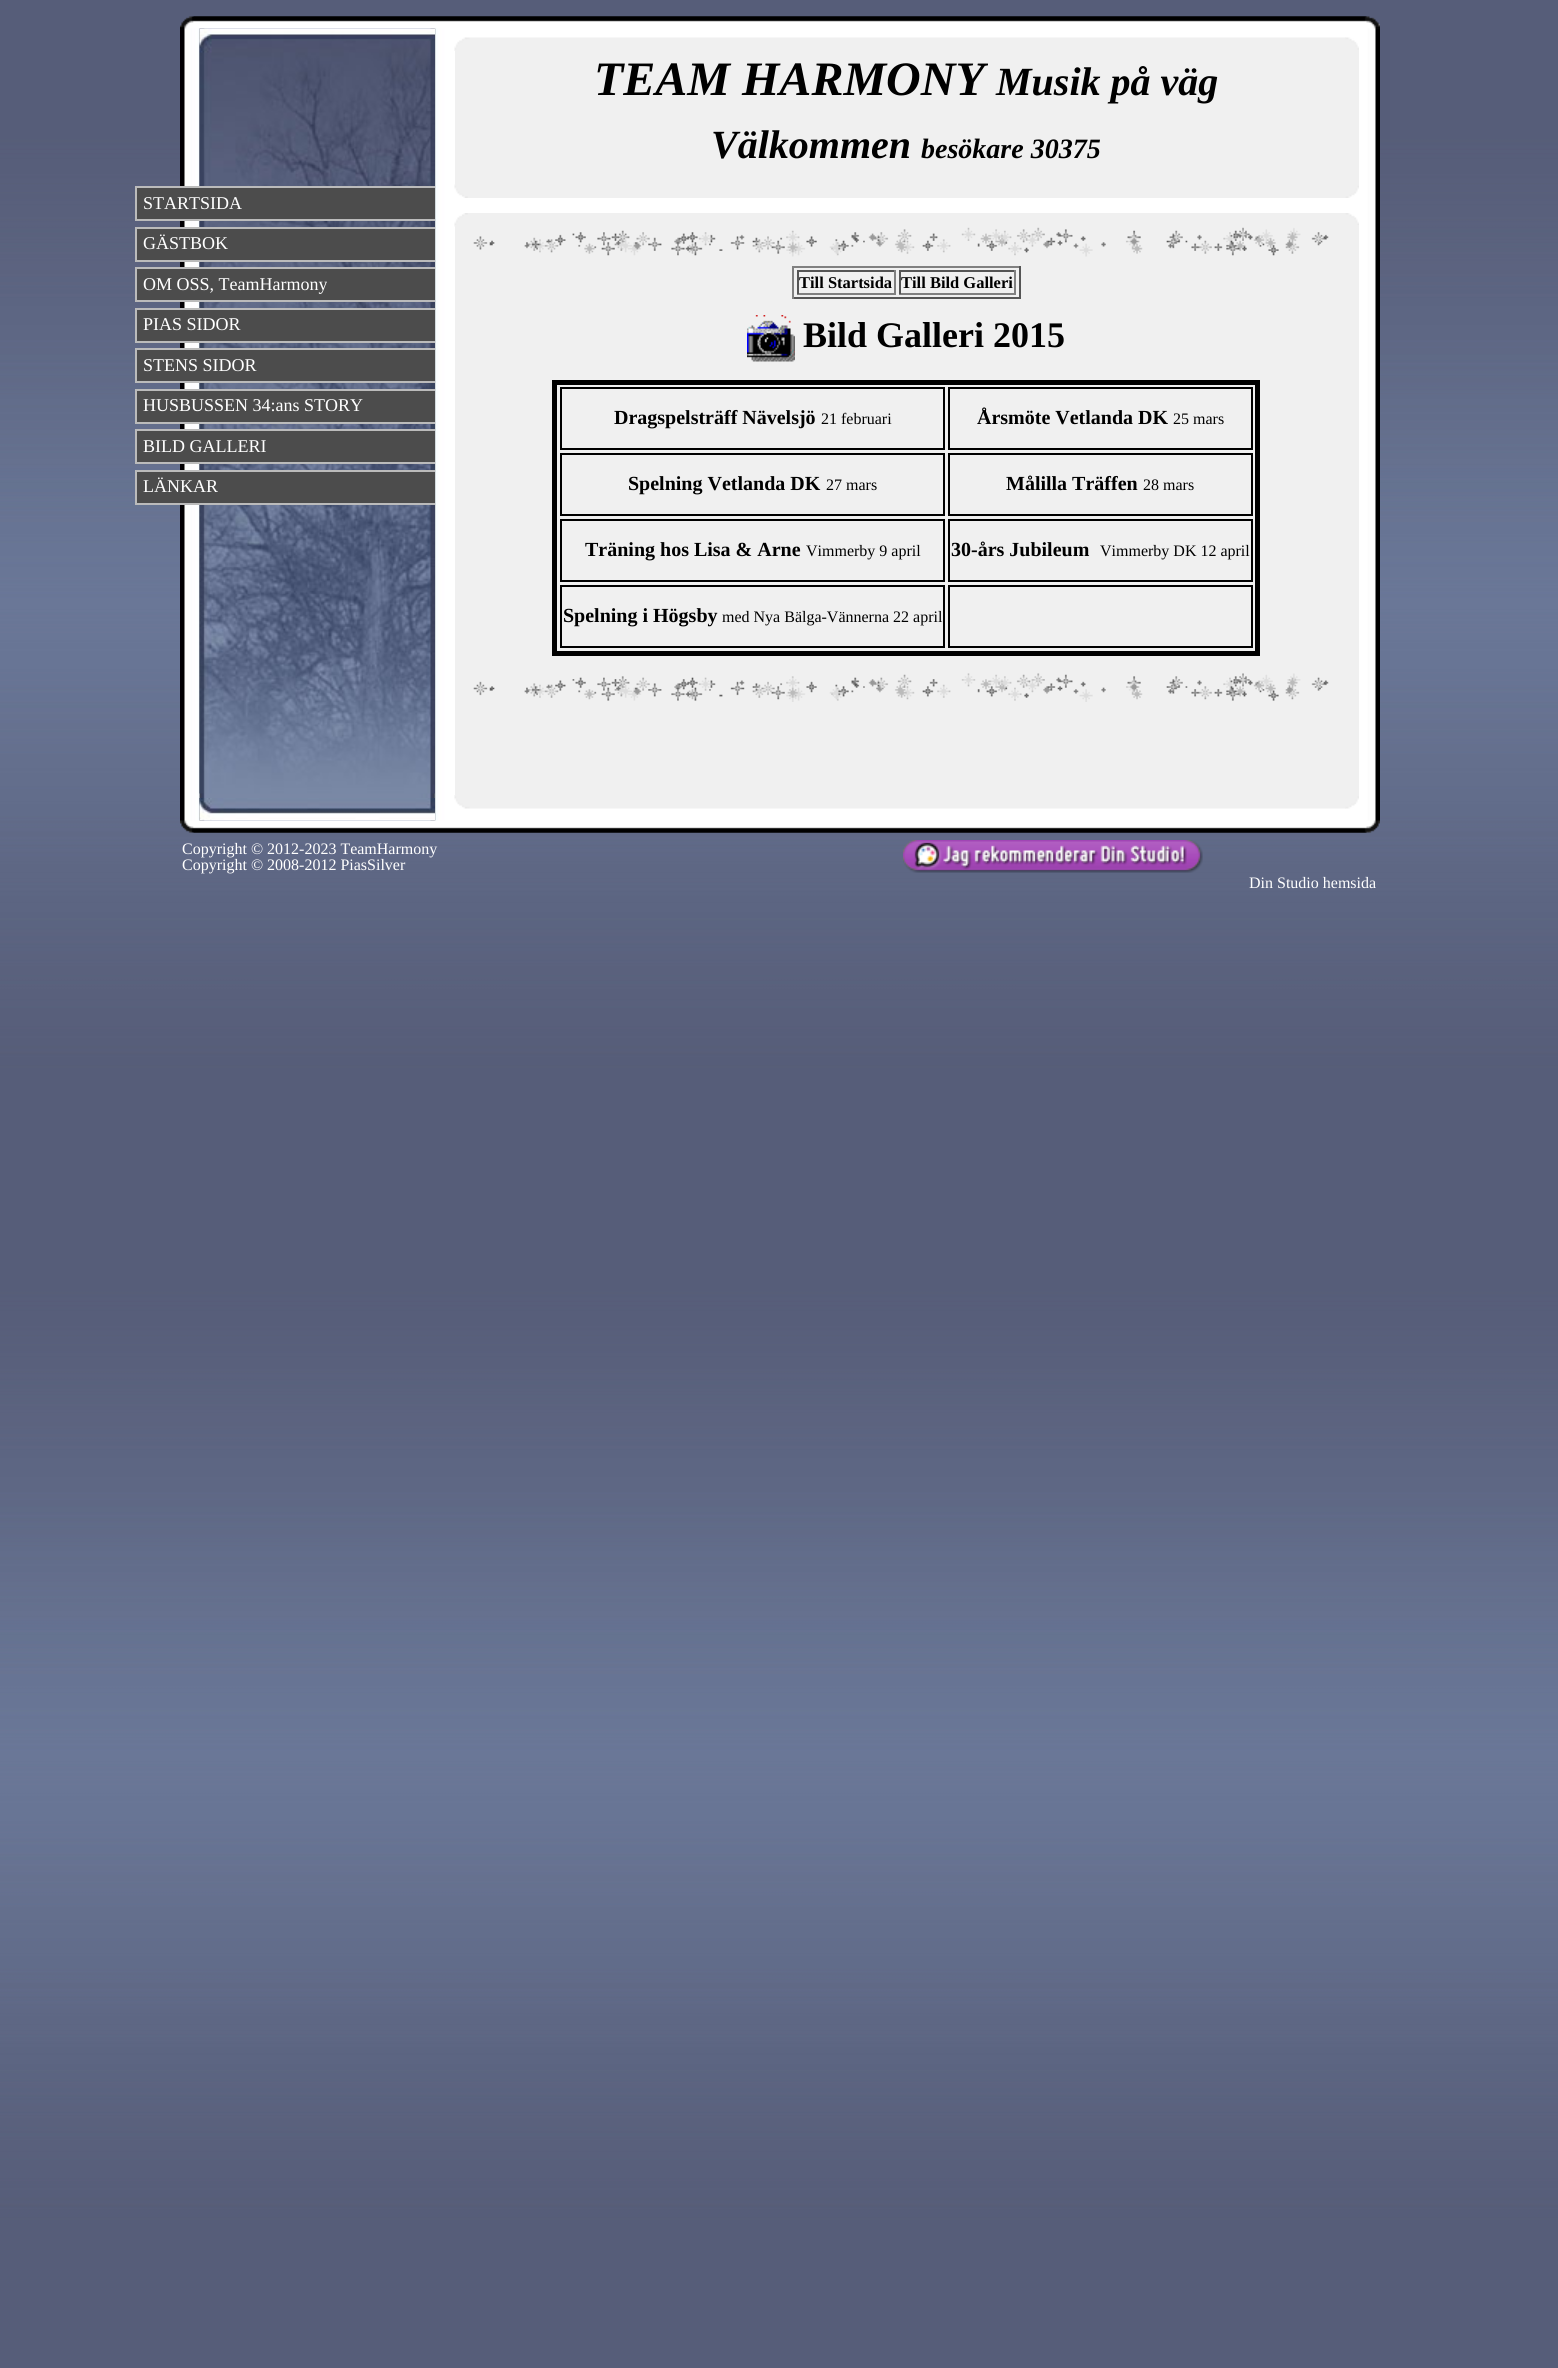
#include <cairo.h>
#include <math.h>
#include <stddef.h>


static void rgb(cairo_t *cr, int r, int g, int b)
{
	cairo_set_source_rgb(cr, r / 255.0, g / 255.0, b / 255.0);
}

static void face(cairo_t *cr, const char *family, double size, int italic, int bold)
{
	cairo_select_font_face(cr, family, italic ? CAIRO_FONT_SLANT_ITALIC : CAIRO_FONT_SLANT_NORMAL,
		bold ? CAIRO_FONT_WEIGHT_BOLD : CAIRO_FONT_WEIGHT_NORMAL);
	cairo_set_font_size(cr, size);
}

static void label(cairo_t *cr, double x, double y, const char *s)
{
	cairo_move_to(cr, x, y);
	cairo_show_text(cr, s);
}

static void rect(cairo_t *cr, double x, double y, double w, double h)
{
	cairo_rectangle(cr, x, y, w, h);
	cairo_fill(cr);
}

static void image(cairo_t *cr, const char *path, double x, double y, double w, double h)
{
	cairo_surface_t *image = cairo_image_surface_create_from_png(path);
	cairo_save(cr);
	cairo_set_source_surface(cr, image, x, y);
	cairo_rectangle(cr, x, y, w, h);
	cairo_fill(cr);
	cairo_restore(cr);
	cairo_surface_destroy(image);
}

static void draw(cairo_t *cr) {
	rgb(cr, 255, 255, 255);
	cairo_paint(cr);
	image(cr, "image0.png", 0, 0, 1558, 2368);
	image(cr, "image1.png", 180, 16, 1187, 13);
	image(cr, "image2.png", 193, 16, 1187, 13);
	image(cr, "image17.png", 180, 820, 1187, 13);
	image(cr, "image18.png", 193, 820, 1187, 13);
	image(cr, "image3.png", 180, 28, 1200, 793);
	image(cr, "image4.png", 199, 28, 236, 766);
	rgb(cr, 76, 76, 76);
	rect(cr, 137, 188, 298, 31);
	rgb(cr, 187, 187, 187);
	rect(cr, 135, 186, 300, 2);
	rect(cr, 135, 219, 300, 2);
	rect(cr, 135, 186, 2, 35);
	face(cr, "Liberation Serif", 18, 0, 0);
	rgb(cr, 255, 255, 255);
	label(cr, 143, 209, "STARTSIDA");
	rgb(cr, 76, 76, 76);
	rect(cr, 137, 229, 298, 31);
	rgb(cr, 187, 187, 187);
	rect(cr, 135, 227, 300, 2);
	rect(cr, 135, 260, 300, 2);
	rect(cr, 135, 227, 2, 34);
	rgb(cr, 255, 255, 255);
	label(cr, 143, 249, "GÄSTBOK");
	rgb(cr, 76, 76, 76);
	rect(cr, 137, 269, 298, 31);
	rgb(cr, 187, 187, 187);
	rect(cr, 135, 267, 300, 2);
	rect(cr, 135, 300, 300, 2);
	rect(cr, 135, 267, 2, 35);
	rgb(cr, 255, 255, 255);
	label(cr, 143, 290, "OM OSS, TeamHarmony");
	rgb(cr, 76, 76, 76);
	rect(cr, 137, 310, 298, 31);
	rgb(cr, 187, 187, 187);
	rect(cr, 135, 308, 300, 2);
	rect(cr, 135, 341, 300, 2);
	rect(cr, 135, 308, 2, 34);
	rgb(cr, 255, 255, 255);
	label(cr, 143, 330, "PIAS SIDOR");
	rgb(cr, 76, 76, 76);
	rect(cr, 137, 350, 298, 31);
	rgb(cr, 187, 187, 187);
	rect(cr, 135, 348, 300, 2);
	rect(cr, 135, 381, 300, 2);
	rect(cr, 135, 348, 2, 35);
	rgb(cr, 255, 255, 255);
	label(cr, 143, 371, "STENS SIDOR");
	rgb(cr, 76, 76, 76);
	rect(cr, 137, 391, 298, 31);
	rgb(cr, 187, 187, 187);
	rect(cr, 135, 389, 300, 2);
	rect(cr, 135, 422, 300, 2);
	rect(cr, 135, 389, 2, 34);
	rgb(cr, 255, 255, 255);
	label(cr, 143, 411, "HUSBUSSEN 34:ans STORY");
	rgb(cr, 76, 76, 76);
	rect(cr, 137, 431, 298, 31);
	rgb(cr, 187, 187, 187);
	rect(cr, 135, 429, 300, 2);
	rect(cr, 135, 462, 300, 2);
	rect(cr, 135, 429, 2, 35);
	rgb(cr, 255, 255, 255);
	label(cr, 143, 452, "BILD GALLERI");
	rgb(cr, 76, 76, 76);
	rect(cr, 137, 472, 298, 31);
	rgb(cr, 187, 187, 187);
	rect(cr, 135, 470, 300, 2);
	rect(cr, 135, 503, 300, 2);
	rect(cr, 135, 470, 2, 34);
	rgb(cr, 255, 255, 255);
	label(cr, 143, 492, "LÄNKAR");
	image(cr, "image5.png", 454, 37, 892, 14);
	image(cr, "image6.png", 1345, 37, 14, 13);
	rgb(cr, 240, 240, 240);
	rect(cr, 455, 50, 904, 135);
	face(cr, "Liberation Serif", 48, 1, 1);
	rgb(cr, 0, 0, 0);
	label(cr, 594, 95, "TEAM HARMONY");
	face(cr, "Liberation Serif", 40, 1, 1);
	label(cr, 996, 95, "Musik på väg");
	label(cr, 711, 158, "Välkommen");
	face(cr, "Liberation Serif", 28, 1, 1);
	label(cr, 921, 158, "besökare 30375");
	image(cr, "image7.png", 454, 184, 892, 14);
	image(cr, "image8.png", 468, 185, 891, 13);
	image(cr, "image9.png", 454, 213, 14, 14);
	image(cr, "image10.png", 468, 213, 891, 12);
	rgb(cr, 240, 240, 240);
	rect(cr, 455, 225, 904, 570);
	image(cr, "image11.png", 473, 227, 856, 30);
	rgb(cr, 128, 128, 128);
	rect(cr, 792, 266, 228, 2);
	rgb(cr, 85, 85, 85);
	rect(cr, 1019, 266, 2, 33);
	rect(cr, 792, 297, 228, 2);
	rgb(cr, 128, 128, 128);
	rect(cr, 792, 266, 2, 33);
	rgb(cr, 85, 85, 85);
	rect(cr, 797, 270, 99, 2);
	rgb(cr, 128, 128, 128);
	rect(cr, 894, 270, 2, 24);
	rect(cr, 797, 293, 99, 2);
	rgb(cr, 85, 85, 85);
	rect(cr, 797, 270, 2, 24);
	face(cr, "Liberation Serif", 16.5, 0, 1);
	rgb(cr, 0, 0, 0);
	label(cr, 799, 288, "Till Startsida");
	rgb(cr, 85, 85, 85);
	rect(cr, 899, 270, 117, 2);
	rgb(cr, 128, 128, 128);
	rect(cr, 1014, 270, 2, 24);
	rect(cr, 899, 293, 117, 2);
	rgb(cr, 85, 85, 85);
	rect(cr, 899, 270, 2, 24);
	rgb(cr, 0, 0, 0);
	label(cr, 901, 288, "Till Bild Galleri");
	image(cr, "image12.png", 747, 315, 48, 47);
	face(cr, "Liberation Serif", 36, 0, 1);
	label(cr, 803, 347, "Bild Galleri 2015");
	cairo_rectangle(cr, 554.5, 382.5, 703, 271);
	cairo_set_line_width(cr, 5);
	cairo_stroke(cr);
	cairo_rectangle(cr, 561, 388, 383, 61);
	cairo_set_line_width(cr, 2);
	cairo_stroke(cr);
	face(cr, "Liberation Serif", 20, 0, 1);
	label(cr, 614, 424, "Dragspelsträff Nävelsjö");
	face(cr, "Liberation Serif", 16, 0, 0);
	label(cr, 821, 424, "21 februari");
	cairo_rectangle(cr, 949, 388, 303, 61);
	cairo_stroke(cr);
	face(cr, "Liberation Serif", 20, 0, 1);
	label(cr, 977, 424, "Årsmöte Vetlanda DK");
	face(cr, "Liberation Serif", 16, 0, 0);
	label(cr, 1173, 424, "25 mars");
	cairo_rectangle(cr, 561, 454, 383, 61);
	cairo_stroke(cr);
	face(cr, "Liberation Serif", 20, 0, 1);
	label(cr, 628, 490, "Spelning Vetlanda DK");
	face(cr, "Liberation Serif", 16, 0, 0);
	label(cr, 826, 490, "27 mars");
	cairo_rectangle(cr, 949, 454, 303, 61);
	cairo_stroke(cr);
	face(cr, "Liberation Serif", 20, 0, 1);
	label(cr, 1006, 490, "Målilla Träffen");
	face(cr, "Liberation Serif", 16, 0, 0);
	label(cr, 1143, 490, "28 mars");
	cairo_rectangle(cr, 561, 520, 383, 61);
	cairo_stroke(cr);
	face(cr, "Liberation Serif", 20, 0, 1);
	label(cr, 585, 556, "Träning hos Lisa & Arne");
	face(cr, "Liberation Serif", 16, 0, 0);
	label(cr, 806, 556, "Vimmerby 9 april");
	cairo_rectangle(cr, 949, 520, 303, 61);
	cairo_stroke(cr);
	face(cr, "Liberation Serif", 20, 0, 1);
	label(cr, 951, 556, "30-års Jubileum");
	face(cr, "Liberation Serif", 16, 0, 0);
	label(cr, 1100, 556, "Vimmerby DK 12 april");
	cairo_rectangle(cr, 561, 586, 383, 61);
	cairo_stroke(cr);
	face(cr, "Liberation Serif", 20, 0, 1);
	label(cr, 563, 622, "Spelning i Högsby");
	face(cr, "Liberation Serif", 16, 0, 0);
	label(cr, 722, 622, "med Nya Bälga-Vännerna 22 april");
	cairo_rectangle(cr, 949, 586, 303, 61);
	cairo_stroke(cr);
	image(cr, "image13.png", 473, 673, 856, 29);
	image(cr, "image14.png", 454, 795, 892, 14);
	image(cr, "image15.png", 1345, 795, 14, 14);
	image(cr, "image16.png", 199, 798, 236, 23);
	rgb(cr, 255, 255, 255);
	label(cr, 182, 854, "Copyright © 2012-2023 TeamHarmony");
	image(cr, "image19.png", 903, 840, 300, 33);
	label(cr, 182, 870, "Copyright © 2008-2012 PiasSilver");
	label(cr, 1249, 888, "Din Studio hemsida");
}

int main(void) {
	cairo_surface_t *surface = cairo_image_surface_create(CAIRO_FORMAT_RGB24, 1558, 2368);
	cairo_t *cr = cairo_create(surface);
	cairo_font_options_t *options = cairo_font_options_create();
	cairo_font_options_set_hint_metrics(options, CAIRO_HINT_METRICS_OFF);
	cairo_font_options_set_hint_style(options, CAIRO_HINT_STYLE_NONE);
	cairo_set_font_options(cr, options);
	cairo_set_miter_limit(cr, 4);
	draw(cr);
	cairo_surface_write_to_png(surface, "render.png");
	cairo_font_options_destroy(options);
	cairo_destroy(cr);
	cairo_surface_destroy(surface);
	return 0;
}
